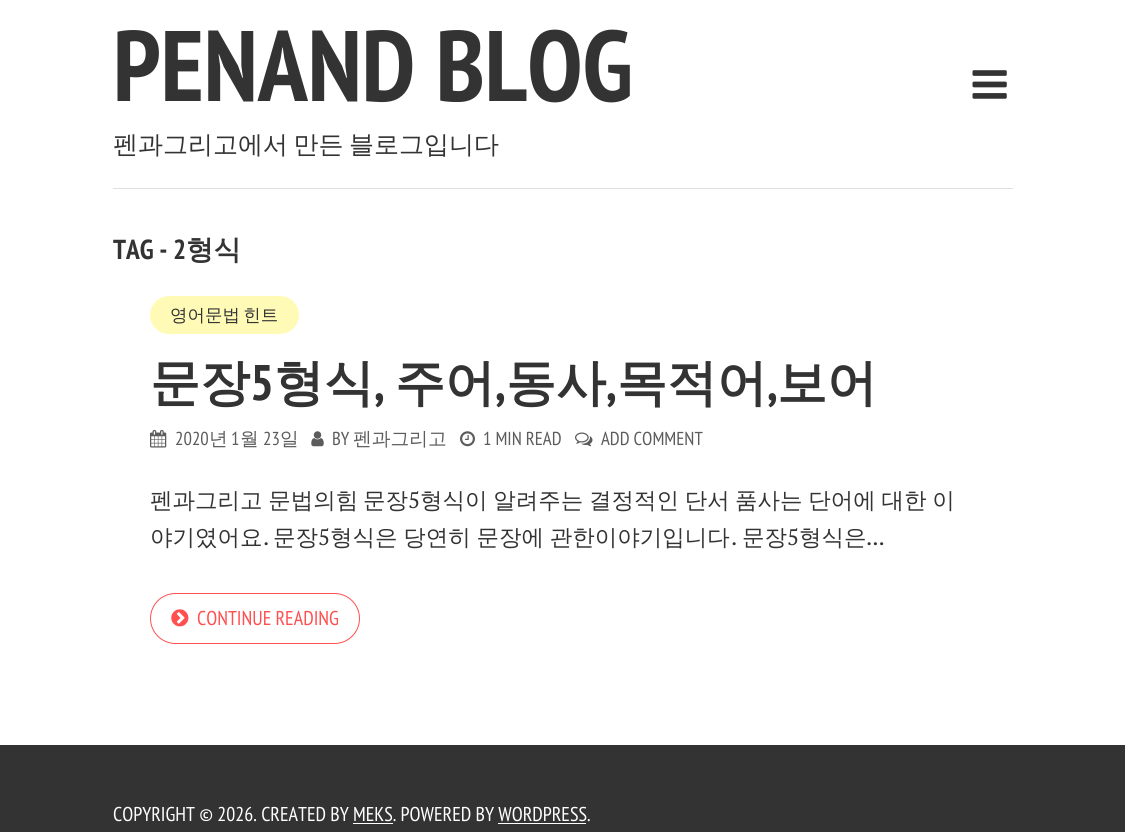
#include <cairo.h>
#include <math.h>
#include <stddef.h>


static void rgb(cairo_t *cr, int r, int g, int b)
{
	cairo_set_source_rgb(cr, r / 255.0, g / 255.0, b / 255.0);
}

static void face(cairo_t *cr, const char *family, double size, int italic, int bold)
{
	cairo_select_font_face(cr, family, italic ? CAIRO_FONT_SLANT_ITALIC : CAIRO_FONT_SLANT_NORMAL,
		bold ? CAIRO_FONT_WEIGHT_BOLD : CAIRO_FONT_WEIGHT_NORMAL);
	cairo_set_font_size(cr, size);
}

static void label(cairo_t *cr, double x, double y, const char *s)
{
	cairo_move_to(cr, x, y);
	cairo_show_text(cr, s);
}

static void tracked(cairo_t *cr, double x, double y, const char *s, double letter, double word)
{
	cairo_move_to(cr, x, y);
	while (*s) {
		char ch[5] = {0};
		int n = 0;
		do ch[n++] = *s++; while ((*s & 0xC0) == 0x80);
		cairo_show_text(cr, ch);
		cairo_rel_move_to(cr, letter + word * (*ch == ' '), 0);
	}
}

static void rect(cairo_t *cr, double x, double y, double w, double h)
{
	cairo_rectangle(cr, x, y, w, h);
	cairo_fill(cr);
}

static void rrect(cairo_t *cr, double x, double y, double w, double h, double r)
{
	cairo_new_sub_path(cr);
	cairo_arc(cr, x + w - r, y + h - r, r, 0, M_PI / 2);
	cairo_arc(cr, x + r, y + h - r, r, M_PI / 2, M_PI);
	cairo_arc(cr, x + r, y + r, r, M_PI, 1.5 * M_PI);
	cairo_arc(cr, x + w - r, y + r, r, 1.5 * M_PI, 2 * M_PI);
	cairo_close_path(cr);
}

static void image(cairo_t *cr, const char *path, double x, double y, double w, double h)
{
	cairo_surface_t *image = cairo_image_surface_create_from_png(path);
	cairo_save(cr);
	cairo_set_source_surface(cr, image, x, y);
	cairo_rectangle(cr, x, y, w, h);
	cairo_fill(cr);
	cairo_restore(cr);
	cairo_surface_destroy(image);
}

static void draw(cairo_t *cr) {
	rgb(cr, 255, 255, 255);
	cairo_paint(cr);
	face(cr, "PT Sans Narrow", 100, 0, 1);
	rgb(cr, 51, 51, 51);
	label(cr, 113, 101, "PENAND BLOG");
	face(cr, "WenQuanYi Zen Hei Medium", 25, 0, 0);
	tracked(cr, 113, 153, "펜과그리고에서 만든 블로그입니다", 0, -2);
	image(cr, "image0.png", 972, 70, 35, 29);
	rgb(cr, 224, 224, 224);
	rect(cr, 113, 188, 900, 1);
	face(cr, "PT Sans Narrow", 27.5, 0, 1);
	rgb(cr, 51, 51, 51);
	label(cr, 113, 259, "TAG - 2");
	face(cr, "WenQuanYi Zen Hei", 27.5, 0, 1);
	label(cr, 186, 259, "형식");
	rgb(cr, 255, 251, 183);
	rrect(cr, 150, 296, 149, 38, 19);
	cairo_fill(cr);
	face(cr, "WenQuanYi Zen Hei Medium", 17.5, 0, 0);
	rgb(cr, 51, 51, 51);
	tracked(cr, 170, 321, "영어문법 힌트", 0, -2);
	face(cr, "WenQuanYi Zen Hei", 50, 0, 1);
	label(cr, 150, 400, "문장");
	face(cr, "PT Sans Narrow", 50, 0, 1);
	label(cr, 250, 400, "5");
	face(cr, "WenQuanYi Zen Hei", 50, 0, 1);
	label(cr, 274, 400, "형식");
	face(cr, "PT Sans Narrow", 50, 0, 1);
	label(cr, 374, 400, ",");
	face(cr, "WenQuanYi Zen Hei", 50, 0, 1);
	label(cr, 395, 400, "주어");
	face(cr, "PT Sans Narrow", 50, 0, 1);
	label(cr, 495, 400, ",");
	face(cr, "WenQuanYi Zen Hei", 50, 0, 1);
	label(cr, 506, 400, "동사");
	face(cr, "PT Sans Narrow", 50, 0, 1);
	label(cr, 606, 400, ",");
	face(cr, "WenQuanYi Zen Hei", 50, 0, 1);
	label(cr, 617, 400, "목적어");
	face(cr, "PT Sans Narrow", 50, 0, 1);
	label(cr, 767, 400, ",");
	face(cr, "WenQuanYi Zen Hei", 50, 0, 1);
	label(cr, 777, 400, "보어");
	image(cr, "image1.png", 150, 430, 17, 18);
	face(cr, "PT Sans Narrow", 18.75, 0, 0);
	rgb(cr, 92, 92, 92);
	label(cr, 175, 445, "2020");
	face(cr, "WenQuanYi Zen Hei Medium", 18.75, 0, 0);
	label(cr, 209, 445, "년");
	face(cr, "PT Sans Narrow", 18.75, 0, 0);
	label(cr, 231, 445, "1");
	face(cr, "WenQuanYi Zen Hei Medium", 18.75, 0, 0);
	label(cr, 240, 445, "월");
	face(cr, "PT Sans Narrow", 18.75, 0, 0);
	label(cr, 263, 445, "23");
	face(cr, "WenQuanYi Zen Hei Medium", 18.75, 0, 0);
	label(cr, 280, 445, "일");
	image(cr, "image2.png", 311, 431, 13, 16);
	face(cr, "PT Sans Narrow", 18.75, 0, 0);
	label(cr, 332, 445, "BY");
	face(cr, "WenQuanYi Zen Hei Medium", 18.75, 0, 0);
	label(cr, 353, 445, "펜과그리고");
	image(cr, "image3.png", 460, 431, 15, 16);
	face(cr, "PT Sans Narrow", 18.75, 0, 0);
	label(cr, 483, 445, "1 MIN READ");
	image(cr, "image4.png", 575, 432, 18, 15);
	label(cr, 601, 445, "ADD COMMENT");
	face(cr, "WenQuanYi Zen Hei Medium", 22.5, 0, 0);
	rgb(cr, 51, 51, 51);
	tracked(cr, 150, 508, "펜과그리고 문법의힘", 0, -1);
	label(cr, 363, 508, "문장");
	face(cr, "PT Serif", 22.5, 0, 0);
	label(cr, 408, 508, "5");
	face(cr, "WenQuanYi Zen Hei Medium", 22.5, 0, 0);
	tracked(cr, 420, 508, "형식이 알려주는 결정적인 단서", 0, -1);
	tracked(cr, 735, 508, "품사는 단어에 대한 이", 0, -1);
	label(cr, 150, 545, "야기였어요");
	face(cr, "PT Serif", 22.5, 0, 0);
	label(cr, 263, 545, ".");
	face(cr, "WenQuanYi Zen Hei Medium", 22.5, 0, 0);
	label(cr, 273, 545, "문장");
	face(cr, "PT Serif", 22.5, 0, 0);
	label(cr, 318, 545, "5");
	face(cr, "WenQuanYi Zen Hei Medium", 22.5, 0, 0);
	tracked(cr, 330, 545, "형식은 당연히 문장에 관한이야기입니다", 0, -1);
	face(cr, "PT Serif", 22.5, 0, 0);
	label(cr, 731, 545, ".");
	face(cr, "WenQuanYi Zen Hei Medium", 22.5, 0, 0);
	label(cr, 742, 545, "문장");
	face(cr, "PT Serif", 22.5, 0, 0);
	label(cr, 787, 545, "5");
	face(cr, "WenQuanYi Zen Hei Medium", 22.5, 0, 0);
	label(cr, 799, 545, "형식은");
	face(cr, "PT Serif", 22.5, 0, 0);
	label(cr, 866, 545, "...");
	rrect(cr, 150.5, 593.5, 209, 50, 25);
	rgb(cr, 255, 80, 80);
	cairo_set_line_width(cr, 1);
	cairo_stroke(cr);
	image(cr, "image5.png", 171, 609, 18, 18);
	face(cr, "PT Sans Narrow", 20, 0, 0);
	label(cr, 197, 625, "CONTINUE READING");
	rgb(cr, 51, 51, 51);
	rect(cr, 0, 745, 1125, 87);
	rgb(cr, 255, 255, 255);
	label(cr, 113, 821, "COPYRIGHT © 2026. CREATED BY MEKS. POWERED BY WORDPRESS.");
	rect(cr, 353, 823, 40, 1);
	rect(cr, 498, 823, 88, 1);
}

int main(void) {
	cairo_surface_t *surface = cairo_image_surface_create(CAIRO_FORMAT_RGB24, 1125, 832);
	cairo_t *cr = cairo_create(surface);
	cairo_font_options_t *options = cairo_font_options_create();
	cairo_font_options_set_hint_metrics(options, CAIRO_HINT_METRICS_OFF);
	cairo_font_options_set_hint_style(options, CAIRO_HINT_STYLE_NONE);
	cairo_set_font_options(cr, options);
	cairo_set_miter_limit(cr, 4);
	draw(cr);
	cairo_surface_write_to_png(surface, "render.png");
	cairo_font_options_destroy(options);
	cairo_destroy(cr);
	cairo_surface_destroy(surface);
	return 0;
}
